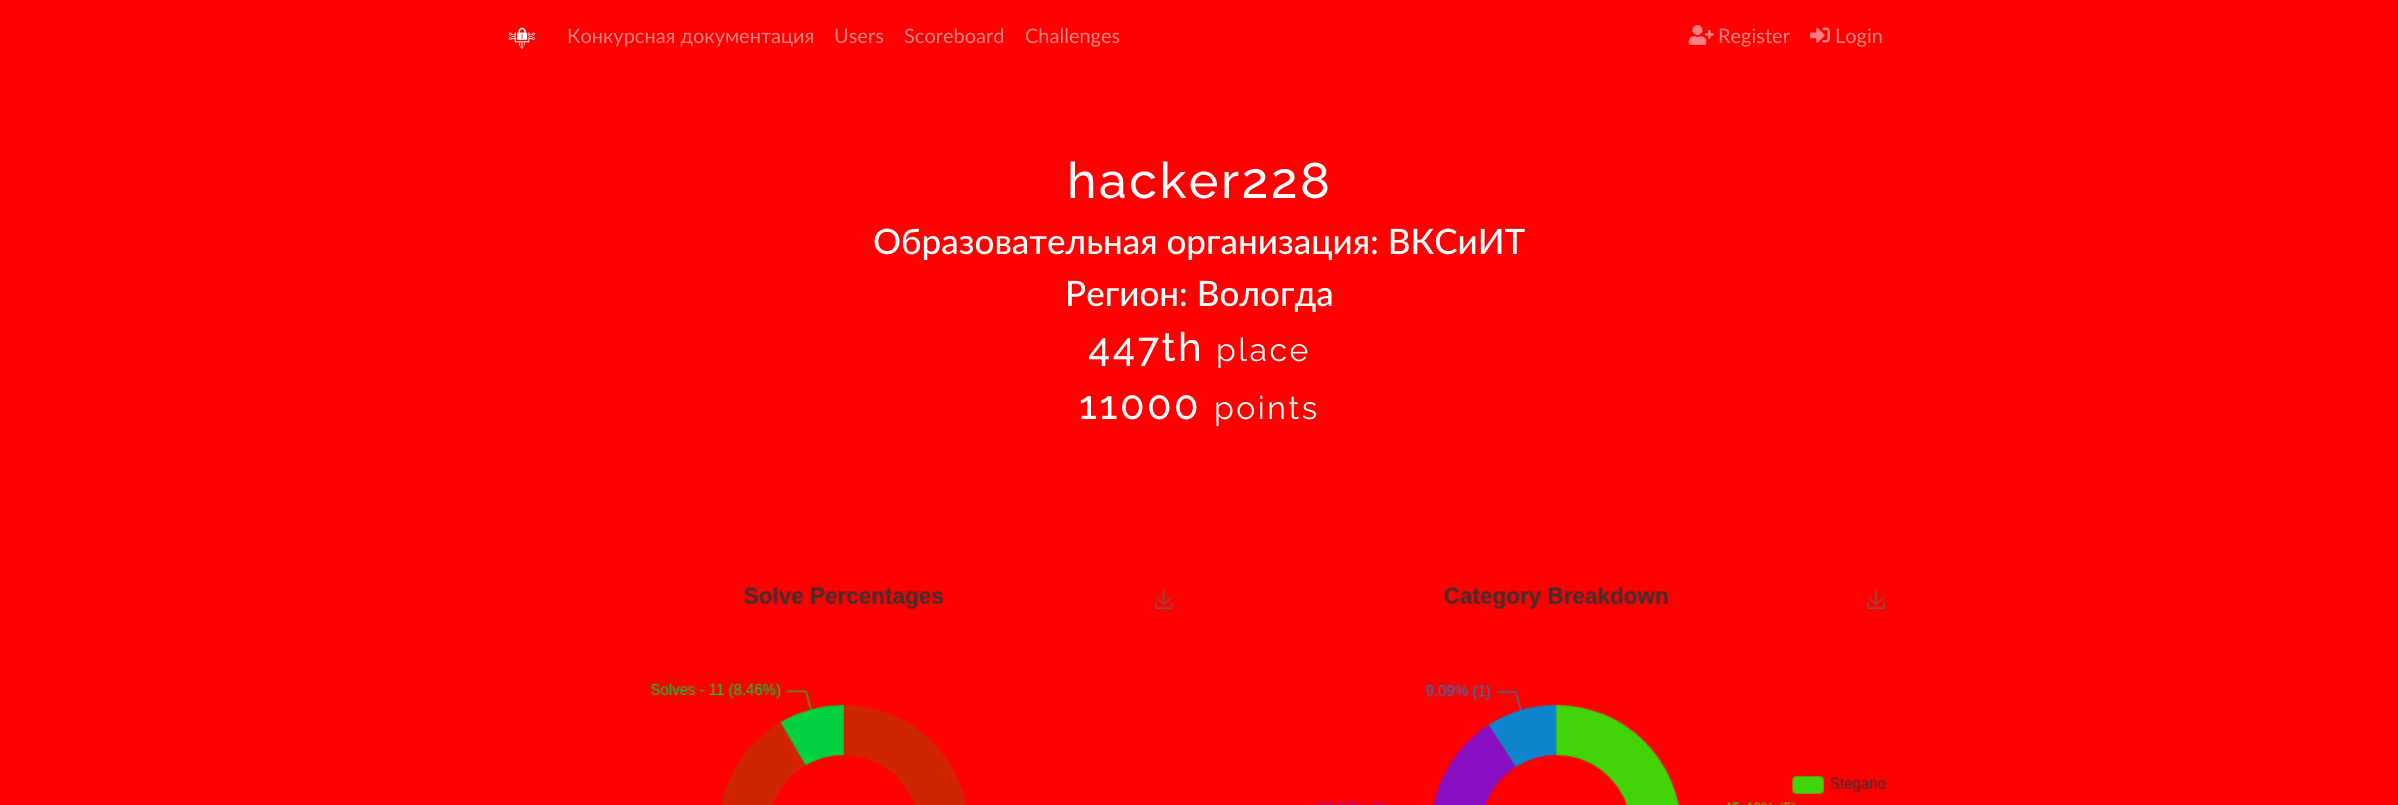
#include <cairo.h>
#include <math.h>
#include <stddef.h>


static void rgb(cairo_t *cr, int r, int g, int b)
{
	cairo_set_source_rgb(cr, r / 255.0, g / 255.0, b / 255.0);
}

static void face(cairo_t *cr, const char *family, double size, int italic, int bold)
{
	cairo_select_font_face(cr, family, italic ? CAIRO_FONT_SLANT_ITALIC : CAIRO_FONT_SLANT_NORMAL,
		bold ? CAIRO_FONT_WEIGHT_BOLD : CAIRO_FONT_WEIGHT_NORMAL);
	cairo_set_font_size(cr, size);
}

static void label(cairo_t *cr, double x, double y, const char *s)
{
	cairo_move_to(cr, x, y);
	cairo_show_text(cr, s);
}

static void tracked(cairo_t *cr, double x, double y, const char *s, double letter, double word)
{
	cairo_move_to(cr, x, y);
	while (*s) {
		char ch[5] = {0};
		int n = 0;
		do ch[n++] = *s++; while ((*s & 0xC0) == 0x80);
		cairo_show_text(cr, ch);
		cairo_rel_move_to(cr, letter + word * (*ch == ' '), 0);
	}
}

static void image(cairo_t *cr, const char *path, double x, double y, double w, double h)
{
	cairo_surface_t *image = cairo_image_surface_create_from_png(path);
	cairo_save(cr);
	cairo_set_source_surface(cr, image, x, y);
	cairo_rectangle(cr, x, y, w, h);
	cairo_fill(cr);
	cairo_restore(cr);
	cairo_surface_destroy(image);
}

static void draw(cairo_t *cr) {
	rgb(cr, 255, 0, 0);
	cairo_paint(cr);
	image(cr, "image0.png", 508, 27, 27, 22);
	face(cr, "Lato", 20, 0, 0);
	rgb(cr, 255, 128, 128);
	label(cr, 567, 43, "Конкурсная документация");
	label(cr, 834, 43, "Users");
	label(cr, 904, 43, "Scoreboard");
	label(cr, 1025, 43, "Challenges");
	image(cr, "image1.png", 1688, 25, 26, 20);
	label(cr, 1718, 43, "Register");
	image(cr, "image2.png", 1810, 27, 20, 16);
	label(cr, 1835, 43, "Login");
	face(cr, "Raleway Medium", 50, 0, 0);
	rgb(cr, 255, 255, 255);
	tracked(cr, 1067, 198, "hacker228", 2.5, 0);
	face(cr, "Lato Medium", 35, 0, 0);
	label(cr, 873, 254, "Образовательная организация: ВКСиИТ");
	label(cr, 1065, 306, "Регион: Вологда");
	face(cr, "Raleway Medium", 40, 0, 0);
	tracked(cr, 1088, 361, "447th", 2.5, 0);
	face(cr, "Raleway", 32, 0, 0);
	tracked(cr, 1216, 361, "place", 2.5, 0);
	face(cr, "Raleway Medium", 40, 0, 0);
	tracked(cr, 1079, 419, "11000", 2.5, 0);
	face(cr, "Raleway", 32, 0, 0);
	tracked(cr, 1214, 419, "points", 2.5, 0);
	image(cr, "image3.png", 651, 587, 522, 218);
	image(cr, "image4.png", 1316, 587, 571, 218);
}

int main(void) {
	cairo_surface_t *surface = cairo_image_surface_create(CAIRO_FORMAT_RGB24, 2398, 805);
	cairo_t *cr = cairo_create(surface);
	cairo_font_options_t *options = cairo_font_options_create();
	cairo_font_options_set_hint_metrics(options, CAIRO_HINT_METRICS_OFF);
	cairo_font_options_set_hint_style(options, CAIRO_HINT_STYLE_NONE);
	cairo_set_font_options(cr, options);
	cairo_set_miter_limit(cr, 4);
	draw(cr);
	cairo_surface_write_to_png(surface, "render.png");
	cairo_font_options_destroy(options);
	cairo_destroy(cr);
	cairo_surface_destroy(surface);
	return 0;
}
